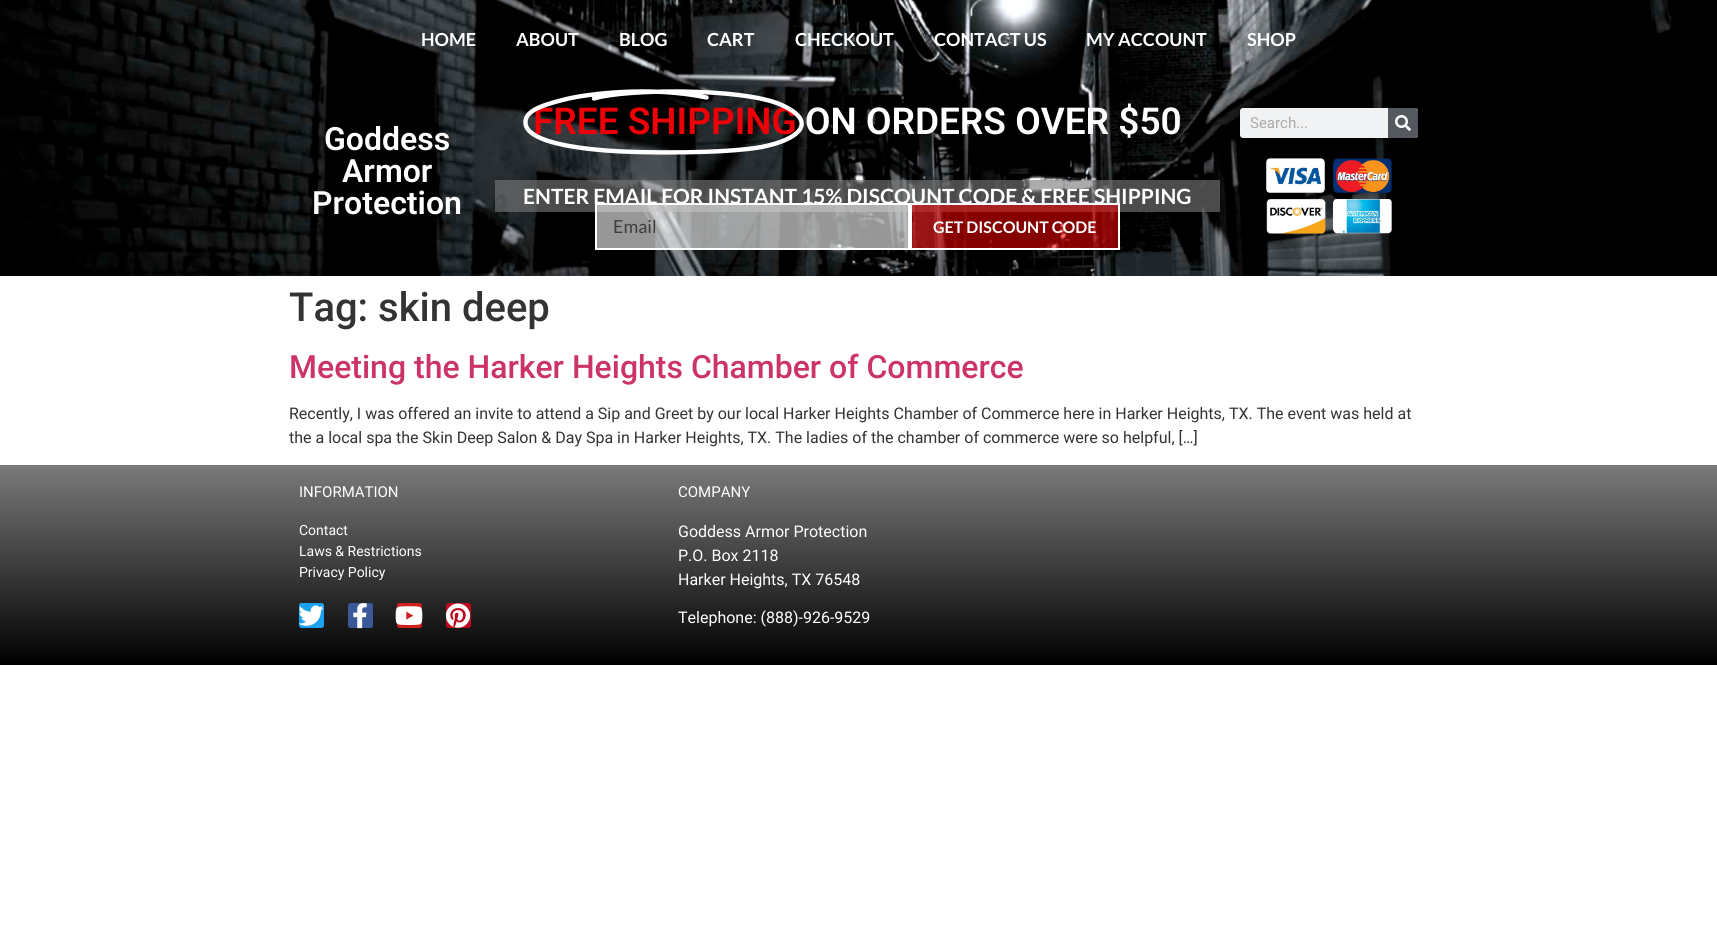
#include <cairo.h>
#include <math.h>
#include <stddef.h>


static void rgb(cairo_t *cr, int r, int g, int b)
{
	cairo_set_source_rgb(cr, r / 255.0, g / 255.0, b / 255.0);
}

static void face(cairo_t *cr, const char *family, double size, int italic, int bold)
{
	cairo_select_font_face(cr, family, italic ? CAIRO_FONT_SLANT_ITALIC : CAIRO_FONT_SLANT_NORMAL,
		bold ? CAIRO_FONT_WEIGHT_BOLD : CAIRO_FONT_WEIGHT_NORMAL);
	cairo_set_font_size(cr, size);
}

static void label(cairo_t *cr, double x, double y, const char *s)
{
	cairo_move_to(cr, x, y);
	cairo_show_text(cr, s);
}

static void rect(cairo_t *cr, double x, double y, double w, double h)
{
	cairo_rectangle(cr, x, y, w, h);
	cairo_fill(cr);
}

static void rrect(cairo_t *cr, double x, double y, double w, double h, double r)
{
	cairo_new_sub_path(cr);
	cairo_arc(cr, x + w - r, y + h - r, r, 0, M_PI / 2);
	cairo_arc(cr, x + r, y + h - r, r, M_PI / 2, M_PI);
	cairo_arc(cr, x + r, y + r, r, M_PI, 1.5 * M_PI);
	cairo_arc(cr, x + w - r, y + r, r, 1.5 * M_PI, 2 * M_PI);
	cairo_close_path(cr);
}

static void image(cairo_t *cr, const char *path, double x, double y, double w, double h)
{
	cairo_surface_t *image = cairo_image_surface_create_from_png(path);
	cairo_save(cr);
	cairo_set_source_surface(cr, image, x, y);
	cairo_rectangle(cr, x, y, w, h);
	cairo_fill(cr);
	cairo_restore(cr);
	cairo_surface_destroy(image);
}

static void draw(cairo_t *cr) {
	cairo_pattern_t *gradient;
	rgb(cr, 255, 255, 255);
	cairo_paint(cr);
	rgb(cr, 0, 0, 0);
	rect(cr, 1672, 0, 45, 276);
	image(cr, "image0.png", 0, 0, 1672, 276);
	face(cr, "Lato", 18, 0, 1);
	rgb(cr, 255, 255, 255);
	label(cr, 421, 46, "HOME");
	label(cr, 516, 46, "ABOUT");
	label(cr, 619, 46, "BLOG");
	label(cr, 707, 46, "CART");
	label(cr, 795, 46, "CHECKOUT");
	label(cr, 934, 46, "CONTACT US");
	label(cr, 1086, 46, "MY ACCOUNT");
	label(cr, 1247, 46, "SHOP");
	face(cr, "Roboto SemiBold", 37, 0, 0);
	rgb(cr, 239, 0, 7);
	label(cr, 533, 134, "FREE SHIPPING");
	cairo_new_path(cr);
	cairo_move_to(cr, 706.5, 97.5);
	cairo_curve_to(cr, 652, 86, 589.5, 93.5, 566.5, 99);
	cairo_curve_to(cr, 535, 106.5, 525, 113, 525.5, 123);
	cairo_curve_to(cr, 526, 137, 555, 146.5, 606, 150.5);
	cairo_curve_to(cr, 644, 153.5, 726.5, 153.5, 761.5, 147);
	cairo_curve_to(cr, 798, 140, 820.5, 122, 780.5, 104.5);
	cairo_curve_to(cr, 741.5, 87.5, 624, 89, 594, 98.5);
	rgb(cr, 255, 255, 255);
	cairo_set_line_width(cr, 4.4);
	cairo_set_line_cap(cr, CAIRO_LINE_CAP_ROUND);
	cairo_set_line_join(cr, CAIRO_LINE_JOIN_ROUND);
	cairo_stroke(cr);
	label(cr, 805, 134, "ON ORDERS OVER $50");
	cairo_set_source_rgba(cr, 0.478, 0.478, 0.478, 0.62);
	rect(cr, 495, 180, 725, 32);
	face(cr, "Lato", 21, 0, 1);
	rgb(cr, 255, 255, 255);
	label(cr, 523, 204, "ENTER EMAIL FOR INSTANT 15% DISCOUNT CODE & FREE SHIPPING");
	cairo_set_source_rgba(cr, 0.937, 0.937, 0.937, 0.63);
	cairo_rectangle(cr, 596, 204, 313, 45);
	cairo_fill_preserve(cr);
	rgb(cr, 255, 255, 255);
	cairo_set_line_width(cr, 2);
	cairo_set_line_cap(cr, CAIRO_LINE_CAP_BUTT);
	cairo_set_line_join(cr, CAIRO_LINE_JOIN_MITER);
	cairo_stroke(cr);
	face(cr, "Lato", 18, 0, 0);
	rgb(cr, 61, 61, 61);
	label(cr, 613, 233, "Email");
	cairo_set_source_rgba(cr, 0.937, 0, 0, 0.56);
	cairo_rectangle(cr, 911, 204, 208, 45);
	cairo_fill_preserve(cr);
	rgb(cr, 255, 255, 255);
	cairo_stroke(cr);
	face(cr, "Lato", 16, 0, 1);
	label(cr, 933, 233, "GET DISCOUNT CODE");
	rgb(cr, 241, 242, 243);
	rrect(cr, 1240, 108, 178, 30, 3);
	cairo_fill(cr);
	face(cr, "Roboto", 15, 0, 0);
	rgb(cr, 170, 170, 170);
	label(cr, 1250, 128, "Search...");
	rgb(cr, 84, 89, 95);
	cairo_new_path(cr);
	cairo_move_to(cr, 1388, 108);
	cairo_line_to(cr, 1415, 108);
	cairo_curve_to(cr, 1416.5, 108, 1418, 109.5, 1418, 111);
	cairo_line_to(cr, 1418, 135);
	cairo_curve_to(cr, 1418, 136.5, 1416.5, 138, 1415, 138);
	cairo_line_to(cr, 1388, 138);
	cairo_close_path(cr);
	cairo_fill(cr);
	image(cr, "image1.png", 1395, 115, 16, 16);
	image(cr, "image2.png", 1266, 158, 126, 76);
	face(cr, "Roboto SemiBold", 32, 0, 0);
	rgb(cr, 255, 255, 255);
	label(cr, 324, 150, "Goddess");
	label(cr, 342, 182, "Armor");
	label(cr, 312, 214, "Protection");
	face(cr, "Roboto Medium", 40, 0, 0);
	rgb(cr, 51, 51, 51);
	label(cr, 289, 321, "Tag: skin deep");
	face(cr, "Roboto Medium", 32, 0, 0);
	rgb(cr, 204, 51, 102);
	label(cr, 289, 378, "Meeting the Harker Heights Chamber of Commerce");
	face(cr, "Roboto", 16, 0, 0);
	rgb(cr, 51, 51, 51);
	label(cr, 289, 419, "Recently, I was offered an invite to attend a Sip and Greet by our local Harker Heights Chamber of Commerce here in Harker Heights, TX. The event was held at");
	label(cr, 289, 443, "the a local spa the Skin Deep Salon & Day Spa in Harker Heights, TX. The ladies of the chamber of commerce were so helpful, […]");
	gradient = cairo_pattern_create_linear(859, 465, 859, 665);
	cairo_pattern_add_color_stop_rgba(gradient, 0, 0.478, 0.478, 0.478, 1);
	cairo_pattern_add_color_stop_rgba(gradient, 1, 0, 0, 0, 1);
	cairo_set_source(cr, gradient);
	cairo_pattern_destroy(gradient);
	rect(cr, 0, 465, 1717, 200);
	face(cr, "Roboto", 15, 0, 0);
	rgb(cr, 255, 255, 255);
	label(cr, 299, 497, "INFORMATION");
	face(cr, "Roboto", 14, 0, 0);
	label(cr, 299, 535, "Contact");
	label(cr, 299, 556, "Laws & Restrictions");
	label(cr, 299, 577, "Privacy Policy");
	rgb(cr, 29, 161, 242);
	rrect(cr, 299, 603, 25, 25, 2.5);
	cairo_fill(cr);
	image(cr, "image3.png", 298, 605, 26, 21);
	rgb(cr, 59, 89, 152);
	rrect(cr, 348, 603, 25, 25, 2.5);
	cairo_fill(cr);
	image(cr, "image4.png", 353, 603, 14, 26);
	rgb(cr, 205, 32, 31);
	rrect(cr, 397, 603, 25, 25, 2.5);
	cairo_fill(cr);
	image(cr, "image5.png", 395, 606, 28, 19);
	rgb(cr, 189, 8, 28);
	rrect(cr, 446, 603, 25, 25, 2.5);
	cairo_fill(cr);
	image(cr, "image6.png", 445, 603, 26, 25);
	face(cr, "Roboto", 15, 0, 0);
	rgb(cr, 255, 255, 255);
	label(cr, 678, 497, "COMPANY");
	face(cr, "Roboto", 16, 0, 0);
	label(cr, 678, 537, "Goddess Armor Protection");
	label(cr, 678, 561, "P.O. Box 2118");
	label(cr, 678, 585, "Harker Heights, TX 76548");
	label(cr, 678, 623, "Telephone: (888)-926-9529");
}

int main(void) {
	cairo_surface_t *surface = cairo_image_surface_create(CAIRO_FORMAT_RGB24, 1717, 928);
	cairo_t *cr = cairo_create(surface);
	cairo_font_options_t *options = cairo_font_options_create();
	cairo_font_options_set_hint_metrics(options, CAIRO_HINT_METRICS_OFF);
	cairo_font_options_set_hint_style(options, CAIRO_HINT_STYLE_NONE);
	cairo_set_font_options(cr, options);
	cairo_set_miter_limit(cr, 4);
	draw(cr);
	cairo_surface_write_to_png(surface, "render.png");
	cairo_font_options_destroy(options);
	cairo_destroy(cr);
	cairo_surface_destroy(surface);
	return 0;
}
